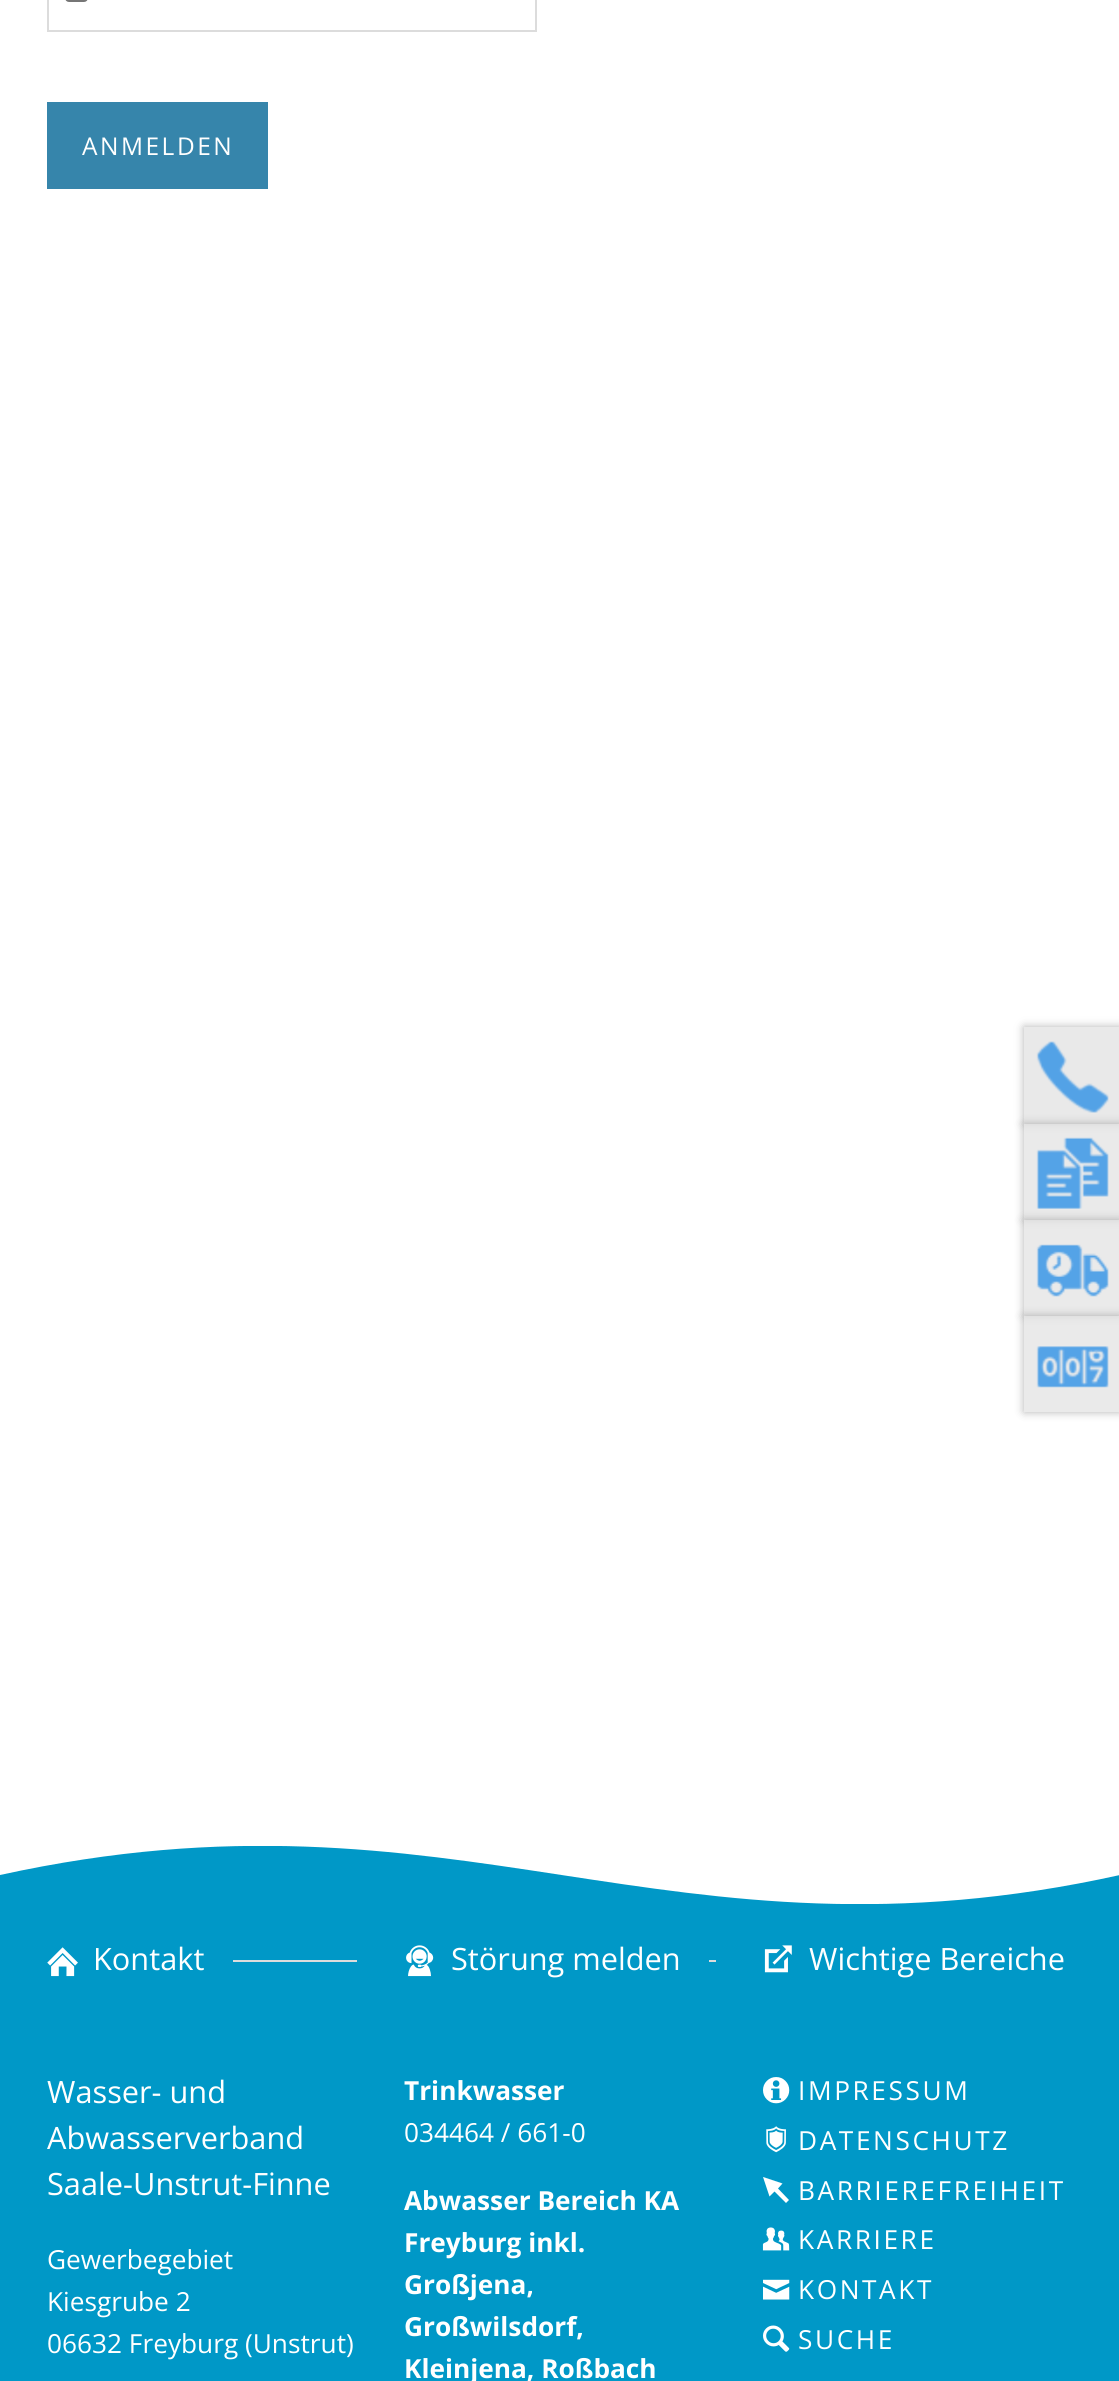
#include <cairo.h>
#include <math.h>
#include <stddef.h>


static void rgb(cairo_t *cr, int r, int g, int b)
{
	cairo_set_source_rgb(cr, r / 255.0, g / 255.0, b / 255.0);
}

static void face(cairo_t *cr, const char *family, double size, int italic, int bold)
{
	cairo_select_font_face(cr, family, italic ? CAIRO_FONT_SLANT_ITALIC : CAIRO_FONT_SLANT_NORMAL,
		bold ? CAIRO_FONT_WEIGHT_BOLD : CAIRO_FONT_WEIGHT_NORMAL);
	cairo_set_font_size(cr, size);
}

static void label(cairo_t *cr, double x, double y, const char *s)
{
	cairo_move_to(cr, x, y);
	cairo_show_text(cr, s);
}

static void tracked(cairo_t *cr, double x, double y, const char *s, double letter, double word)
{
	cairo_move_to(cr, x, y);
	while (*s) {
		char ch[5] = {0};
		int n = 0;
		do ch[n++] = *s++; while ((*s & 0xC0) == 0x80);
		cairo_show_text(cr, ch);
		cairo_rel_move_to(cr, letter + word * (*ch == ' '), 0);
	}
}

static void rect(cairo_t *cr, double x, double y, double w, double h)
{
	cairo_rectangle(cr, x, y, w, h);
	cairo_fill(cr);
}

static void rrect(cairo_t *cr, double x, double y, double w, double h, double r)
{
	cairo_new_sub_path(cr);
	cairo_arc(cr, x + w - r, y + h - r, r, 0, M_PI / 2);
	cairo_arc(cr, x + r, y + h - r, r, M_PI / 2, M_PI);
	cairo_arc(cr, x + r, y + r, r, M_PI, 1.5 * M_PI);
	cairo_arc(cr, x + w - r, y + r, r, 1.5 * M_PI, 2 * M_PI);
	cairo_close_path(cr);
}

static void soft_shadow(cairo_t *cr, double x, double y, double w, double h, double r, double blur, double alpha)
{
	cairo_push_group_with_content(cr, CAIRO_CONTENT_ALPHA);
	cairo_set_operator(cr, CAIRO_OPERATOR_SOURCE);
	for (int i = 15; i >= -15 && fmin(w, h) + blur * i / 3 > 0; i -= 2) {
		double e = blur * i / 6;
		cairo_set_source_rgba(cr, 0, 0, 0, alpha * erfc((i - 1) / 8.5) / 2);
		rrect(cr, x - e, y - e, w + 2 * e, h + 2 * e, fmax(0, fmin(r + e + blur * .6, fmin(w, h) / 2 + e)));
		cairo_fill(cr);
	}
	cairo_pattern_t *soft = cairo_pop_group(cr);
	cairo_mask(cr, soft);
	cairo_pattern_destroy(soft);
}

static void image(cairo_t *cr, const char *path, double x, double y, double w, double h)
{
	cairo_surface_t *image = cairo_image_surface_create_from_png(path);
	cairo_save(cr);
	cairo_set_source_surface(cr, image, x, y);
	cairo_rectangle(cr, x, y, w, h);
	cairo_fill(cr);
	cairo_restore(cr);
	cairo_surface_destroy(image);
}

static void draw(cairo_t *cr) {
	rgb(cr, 255, 255, 255);
	cairo_paint(cr);
	cairo_rectangle(cr, 48, -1, 488, 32);
	rgb(cr, 220, 220, 220);
	cairo_stroke(cr);
	rrect(cr, 66, -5, 21, 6, 3);
	rgb(cr, 118, 118, 118);
	cairo_stroke(cr);
	rgb(cr, 54, 133, 171);
	rect(cr, 47, 102, 221, 87);
	face(cr, "Open Sans", 24.5, 0, 0);
	rgb(cr, 255, 255, 255);
	tracked(cr, 82, 155, "ANMELDEN", 2.5, 0);
	cairo_save(cr);
	cairo_rectangle(cr, 0, 1846, 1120, 62);
	cairo_clip(cr);
	rgb(cr, 0, 152, 199);
	cairo_new_path(cr);
	cairo_move_to(cr, 0, 1875);
	cairo_curve_to(cr, 460, 1774, 664, 1976, 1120, 1875);
	cairo_line_to(cr, 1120, 1907);
	cairo_line_to(cr, 0, 1907);
	cairo_close_path(cr);
	cairo_fill(cr);
	cairo_restore(cr);
	rgb(cr, 0, 152, 199);
	rect(cr, 0, 1904, 1119, 477);
	image(cr, "image0.png", 47, 1947, 31, 30);
	face(cr, "Open Sans", 30.75, 0, 0);
	rgb(cr, 255, 255, 255);
	label(cr, 93, 1970, "Kontakt");
	rgb(cr, 220, 220, 220);
	rect(cr, 233, 1960, 124, 2);
	rgb(cr, 255, 255, 255);
	label(cr, 47, 2103, "Wasser- und");
	label(cr, 47, 2149, "Abwasserverband");
	label(cr, 47, 2195, "Saale-Unstrut-Finne");
	face(cr, "Open Sans", 26.25, 0, 0);
	label(cr, 47, 2269, "Gewerbegebiet");
	label(cr, 47, 2311, "Kiesgrube 2");
	label(cr, 47, 2353, "06632 Freyburg (Unstrut)");
	image(cr, "image1.png", 406, 1945, 28, 32);
	face(cr, "Open Sans", 30.75, 0, 0);
	label(cr, 451, 1970, "Störung melden");
	rgb(cr, 220, 220, 220);
	rect(cr, 709, 1960, 7, 2);
	face(cr, "Open Sans", 26.25, 0, 1);
	rgb(cr, 255, 255, 255);
	label(cr, 404, 2100, "Trinkwasser");
	face(cr, "Open Sans", 26.25, 0, 0);
	label(cr, 404, 2142, "034464 / 661-0");
	face(cr, "Open Sans", 26.25, 0, 1);
	label(cr, 404, 2210, "Abwasser Bereich KA");
	label(cr, 404, 2252, "Freyburg inkl.");
	label(cr, 404, 2294, "Großjena,");
	label(cr, 404, 2336, "Großwilsdorf,");
	label(cr, 404, 2378, "Kleinjena, Roßbach");
	image(cr, "image2.png", 764, 1945, 28, 28);
	face(cr, "Open Sans", 30.75, 0, 0);
	label(cr, 809, 1970, "Wichtige Bereiche");
	image(cr, "image3.png", 763, 2077, 27, 27);
	face(cr, "Open Sans", 26.25, 0, 0);
	tracked(cr, 798, 2100, "IMPRESSUM", 2.6, 0);
	image(cr, "image4.png", 766, 2126, 20, 27);
	tracked(cr, 798, 2150, "DATENSCHUTZ", 2.6, 0);
	cairo_new_path(cr);
	cairo_move_to(cr, 789, 2200);
	cairo_line_to(cr, 778, 2188.5);
	cairo_line_to(cr, 782.5, 2183.5);
	cairo_line_to(cr, 763, 2177);
	cairo_line_to(cr, 769.5, 2196.5);
	cairo_line_to(cr, 774.5, 2191.5);
	cairo_line_to(cr, 786, 2203);
	cairo_close_path(cr);
	cairo_fill(cr);
	tracked(cr, 798, 2200, "BARRIEREFREIHEIT", 2.6, 0);
	image(cr, "image5.png", 762, 2227, 28, 24);
	tracked(cr, 798, 2249, "KARRIERE", 2.6, 0);
	image(cr, "image6.png", 763, 2279, 27, 21);
	tracked(cr, 798, 2299, "KONTAKT", 2.6, 0);
	image(cr, "image7.png", 763, 2325, 27, 27);
	tracked(cr, 798, 2349, "SUCHE", 2.6, 0);
	rgb(cr, 179, 179, 179);
	soft_shadow(cr, 1024, 1027, 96, 97, 0, 4.5, 1);
	rgb(cr, 233, 233, 233);
	rect(cr, 1024, 1027, 95, 97);
	image(cr, "image8.png", 1036, 1041, 73, 72);
	cairo_save(cr);
	cairo_set_fill_rule(cr, CAIRO_FILL_RULE_EVEN_ODD);
	cairo_new_path(cr);
	cairo_move_to(cr, 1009, 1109);
	cairo_line_to(cr, 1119, 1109);
	cairo_line_to(cr, 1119, 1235);
	cairo_line_to(cr, 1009, 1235);
	cairo_close_path(cr);
	cairo_move_to(cr, 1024, 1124);
	cairo_line_to(cr, 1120, 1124);
	cairo_line_to(cr, 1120, 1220);
	cairo_line_to(cr, 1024, 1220);
	cairo_close_path(cr);
	cairo_clip(cr);
	rgb(cr, 153, 153, 153);
	soft_shadow(cr, 1024, 1124, 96, 96, 0, 4.5, 0.75);
	cairo_restore(cr);
	cairo_set_source_rgba(cr, 0.886, 0.886, 0.886, 0.75);
	rect(cr, 1024, 1124, 95, 96);
	image(cr, "image9.png", 1036, 1137, 73, 72);
	cairo_save(cr);
	cairo_set_fill_rule(cr, CAIRO_FILL_RULE_EVEN_ODD);
	cairo_new_path(cr);
	cairo_move_to(cr, 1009, 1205);
	cairo_line_to(cr, 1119, 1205);
	cairo_line_to(cr, 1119, 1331);
	cairo_line_to(cr, 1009, 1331);
	cairo_close_path(cr);
	cairo_move_to(cr, 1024, 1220);
	cairo_line_to(cr, 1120, 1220);
	cairo_line_to(cr, 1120, 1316);
	cairo_line_to(cr, 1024, 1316);
	cairo_close_path(cr);
	cairo_clip(cr);
	rgb(cr, 153, 153, 153);
	soft_shadow(cr, 1024, 1220, 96, 96, 0, 4.5, 0.75);
	cairo_restore(cr);
	rect(cr, 1024, 1220, 95, 96);
	image(cr, "image10.png", 1036, 1244, 73, 53);
	cairo_save(cr);
	cairo_set_fill_rule(cr, CAIRO_FILL_RULE_EVEN_ODD);
	cairo_new_path(cr);
	cairo_move_to(cr, 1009, 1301);
	cairo_line_to(cr, 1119, 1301);
	cairo_line_to(cr, 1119, 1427);
	cairo_line_to(cr, 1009, 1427);
	cairo_close_path(cr);
	cairo_move_to(cr, 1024, 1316);
	cairo_line_to(cr, 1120, 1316);
	cairo_line_to(cr, 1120, 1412);
	cairo_line_to(cr, 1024, 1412);
	cairo_close_path(cr);
	cairo_clip(cr);
	rgb(cr, 153, 153, 153);
	soft_shadow(cr, 1024, 1316, 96, 96, 0, 4.5, 0.75);
	cairo_restore(cr);
	rect(cr, 1024, 1316, 95, 96);
	image(cr, "image11.png", 1036, 1346, 73, 42);
}

int main(void) {
	cairo_surface_t *surface = cairo_image_surface_create(CAIRO_FORMAT_RGB24, 1119, 2381);
	cairo_t *cr = cairo_create(surface);
	cairo_font_options_t *options = cairo_font_options_create();
	cairo_font_options_set_hint_metrics(options, CAIRO_HINT_METRICS_OFF);
	cairo_font_options_set_hint_style(options, CAIRO_HINT_STYLE_NONE);
	cairo_set_font_options(cr, options);
	cairo_set_miter_limit(cr, 4);
	draw(cr);
	cairo_surface_write_to_png(surface, "render.png");
	cairo_font_options_destroy(options);
	cairo_destroy(cr);
	cairo_surface_destroy(surface);
	return 0;
}
